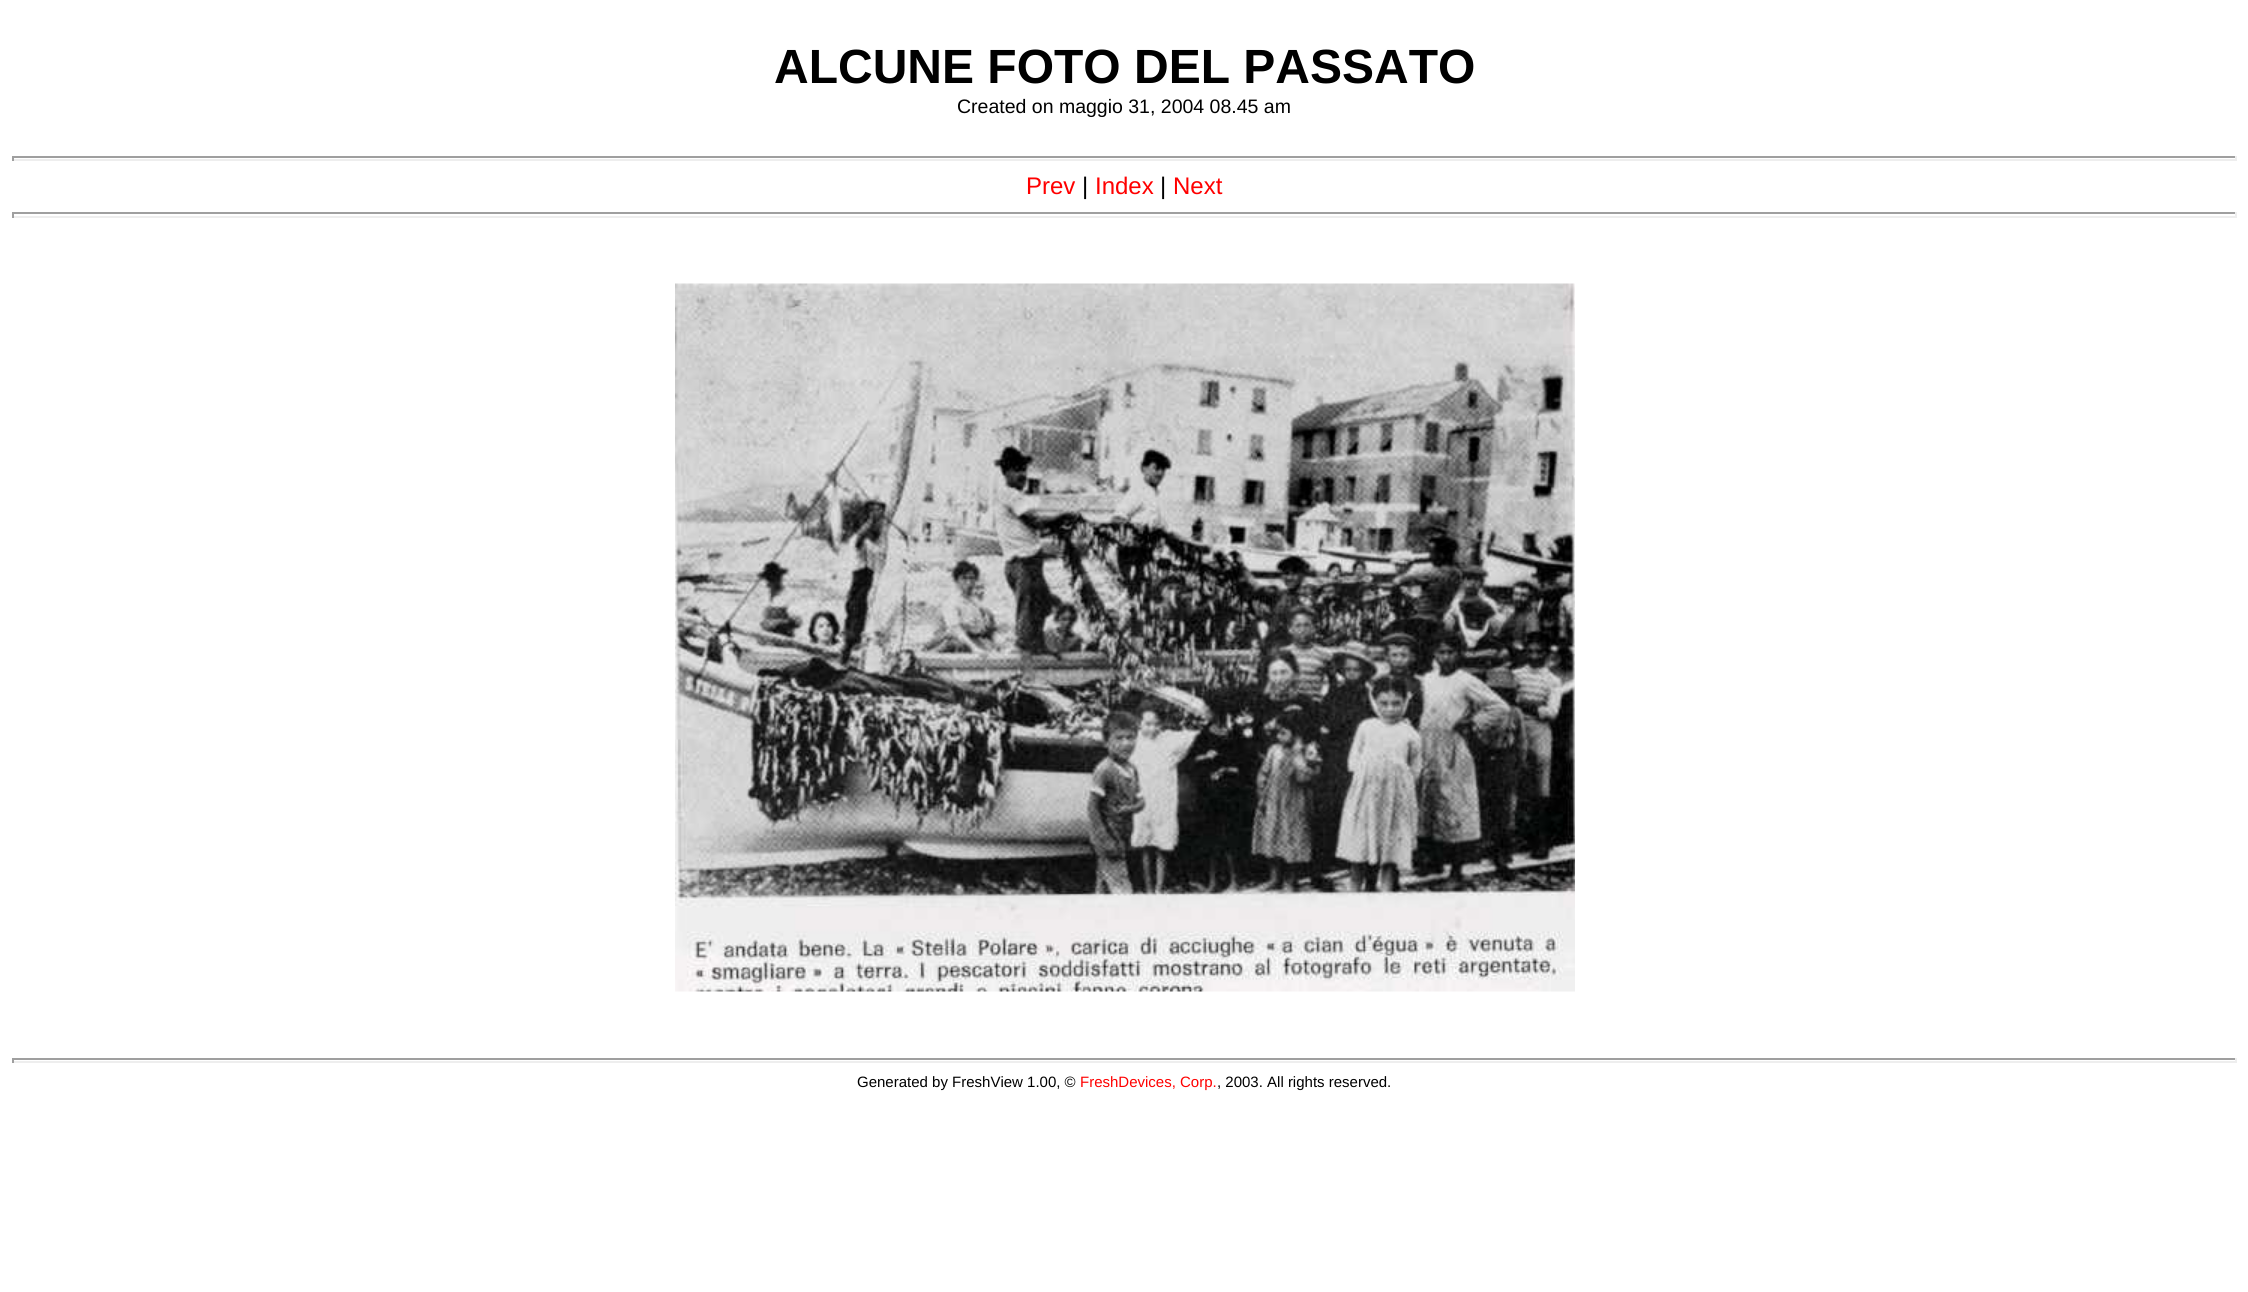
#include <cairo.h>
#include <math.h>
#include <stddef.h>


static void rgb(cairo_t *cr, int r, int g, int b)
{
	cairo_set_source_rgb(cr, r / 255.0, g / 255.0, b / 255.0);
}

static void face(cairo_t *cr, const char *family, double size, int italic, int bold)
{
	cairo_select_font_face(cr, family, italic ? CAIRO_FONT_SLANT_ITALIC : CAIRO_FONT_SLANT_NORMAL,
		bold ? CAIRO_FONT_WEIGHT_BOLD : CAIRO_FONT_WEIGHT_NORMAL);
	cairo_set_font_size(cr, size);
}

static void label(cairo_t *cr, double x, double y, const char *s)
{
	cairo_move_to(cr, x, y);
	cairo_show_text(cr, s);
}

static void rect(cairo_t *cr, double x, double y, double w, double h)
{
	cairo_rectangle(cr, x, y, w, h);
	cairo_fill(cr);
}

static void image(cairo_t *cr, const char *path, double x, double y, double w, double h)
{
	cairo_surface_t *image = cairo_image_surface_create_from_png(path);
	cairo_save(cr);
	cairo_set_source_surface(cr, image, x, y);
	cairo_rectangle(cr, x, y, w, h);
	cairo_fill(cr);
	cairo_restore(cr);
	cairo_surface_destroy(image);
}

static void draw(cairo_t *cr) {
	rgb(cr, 255, 255, 255);
	cairo_paint(cr);
	face(cr, "Liberation Sans", 48, 0, 1);
	rgb(cr, 0, 0, 0);
	label(cr, 774, 83, "ALCUNE FOTO DEL PASSATO");
	face(cr, "Liberation Sans", 19.5, 0, 0);
	label(cr, 957, 113, "Created on maggio 31, 2004 08.45 am");
	rgb(cr, 159, 159, 159);
	rect(cr, 12, 156, 2225, 2);
	rgb(cr, 238, 238, 238);
	rect(cr, 2235, 156, 2, 5);
	rect(cr, 12, 159, 2225, 2);
	rgb(cr, 159, 159, 159);
	rect(cr, 12, 156, 2, 5);
	face(cr, "Liberation Sans", 24, 0, 0);
	rgb(cr, 255, 0, 0);
	label(cr, 1026, 194, "Prev");
	rgb(cr, 0, 0, 0);
	label(cr, 1082, 194, "|");
	rgb(cr, 255, 0, 0);
	label(cr, 1095, 194, "Index");
	rgb(cr, 0, 0, 0);
	label(cr, 1160, 194, "|");
	rgb(cr, 255, 0, 0);
	label(cr, 1173, 194, "Next");
	rgb(cr, 159, 159, 159);
	rect(cr, 12, 212, 2225, 2);
	rgb(cr, 238, 238, 238);
	rect(cr, 2235, 212, 2, 6);
	rect(cr, 12, 216, 2225, 2);
	rgb(cr, 159, 159, 159);
	rect(cr, 12, 212, 2, 6);
	image(cr, "image0.png", 675, 283, 900, 709);
	rect(cr, 12, 1058, 2225, 2);
	rgb(cr, 238, 238, 238);
	rect(cr, 2235, 1058, 2, 5);
	rect(cr, 12, 1061, 2225, 2);
	rgb(cr, 159, 159, 159);
	rect(cr, 12, 1058, 2, 5);
	face(cr, "Liberation Sans", 15, 0, 0);
	rgb(cr, 0, 0, 0);
	label(cr, 857, 1087, "Generated by FreshView 1.00, ©");
	rgb(cr, 255, 0, 0);
	label(cr, 1080, 1087, "FreshDevices, Corp.");
	rgb(cr, 0, 0, 0);
	label(cr, 1217, 1087, ", 2003. All rights reserved.");
}

int main(void) {
	cairo_surface_t *surface = cairo_image_surface_create(CAIRO_FORMAT_RGB24, 2248, 1292);
	cairo_t *cr = cairo_create(surface);
	cairo_font_options_t *options = cairo_font_options_create();
	cairo_font_options_set_hint_metrics(options, CAIRO_HINT_METRICS_OFF);
	cairo_font_options_set_hint_style(options, CAIRO_HINT_STYLE_NONE);
	cairo_set_font_options(cr, options);
	cairo_set_miter_limit(cr, 4);
	draw(cr);
	cairo_surface_write_to_png(surface, "render.png");
	cairo_font_options_destroy(options);
	cairo_destroy(cr);
	cairo_surface_destroy(surface);
	return 0;
}
